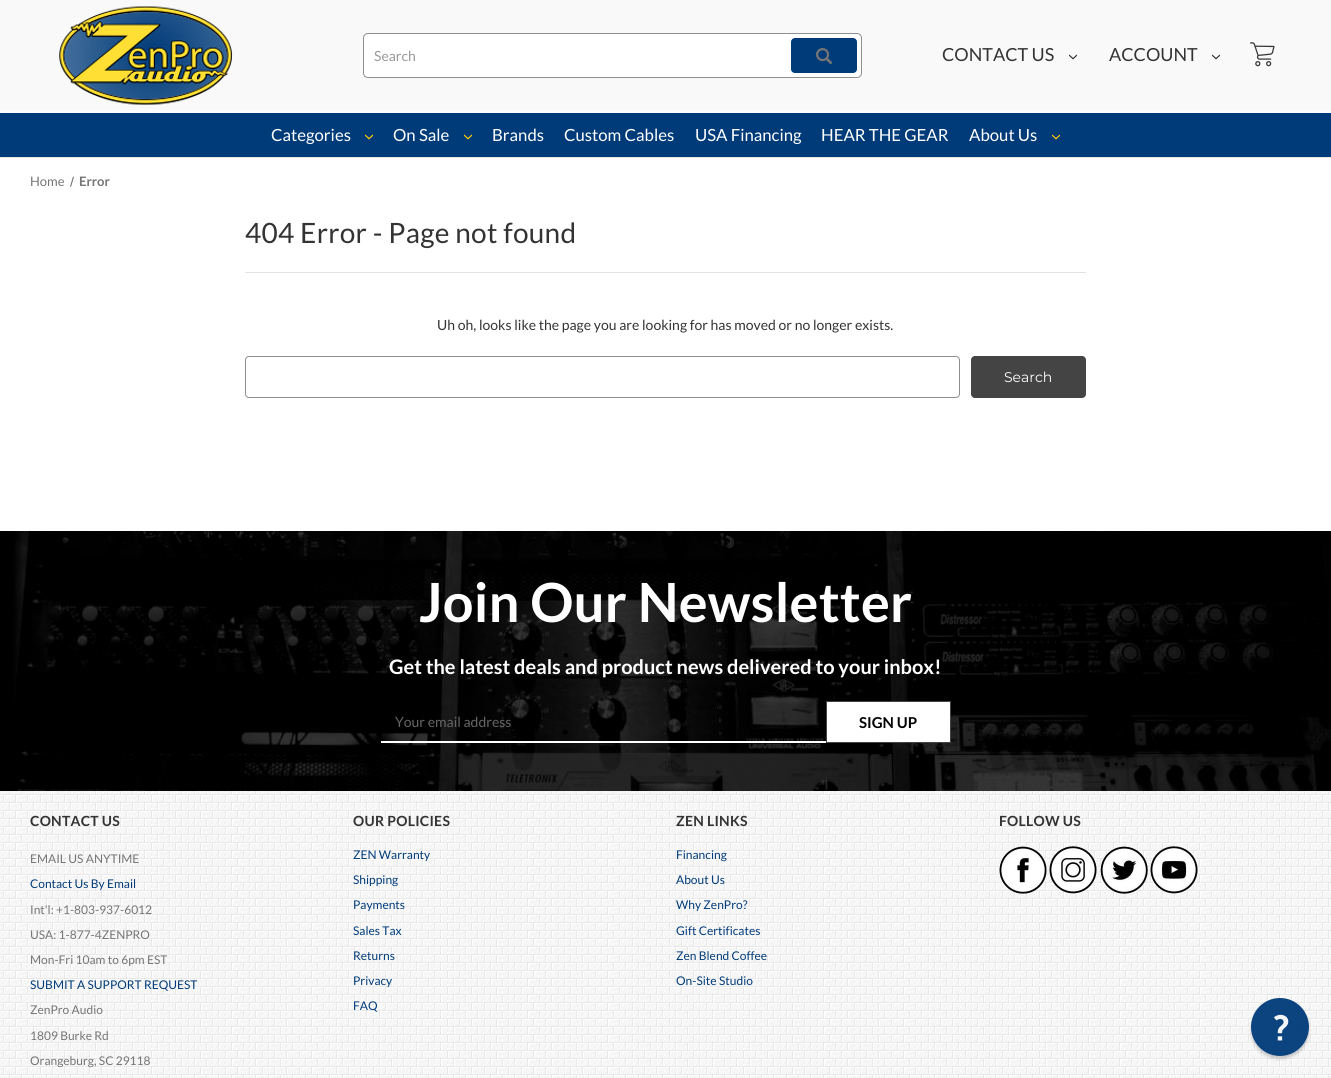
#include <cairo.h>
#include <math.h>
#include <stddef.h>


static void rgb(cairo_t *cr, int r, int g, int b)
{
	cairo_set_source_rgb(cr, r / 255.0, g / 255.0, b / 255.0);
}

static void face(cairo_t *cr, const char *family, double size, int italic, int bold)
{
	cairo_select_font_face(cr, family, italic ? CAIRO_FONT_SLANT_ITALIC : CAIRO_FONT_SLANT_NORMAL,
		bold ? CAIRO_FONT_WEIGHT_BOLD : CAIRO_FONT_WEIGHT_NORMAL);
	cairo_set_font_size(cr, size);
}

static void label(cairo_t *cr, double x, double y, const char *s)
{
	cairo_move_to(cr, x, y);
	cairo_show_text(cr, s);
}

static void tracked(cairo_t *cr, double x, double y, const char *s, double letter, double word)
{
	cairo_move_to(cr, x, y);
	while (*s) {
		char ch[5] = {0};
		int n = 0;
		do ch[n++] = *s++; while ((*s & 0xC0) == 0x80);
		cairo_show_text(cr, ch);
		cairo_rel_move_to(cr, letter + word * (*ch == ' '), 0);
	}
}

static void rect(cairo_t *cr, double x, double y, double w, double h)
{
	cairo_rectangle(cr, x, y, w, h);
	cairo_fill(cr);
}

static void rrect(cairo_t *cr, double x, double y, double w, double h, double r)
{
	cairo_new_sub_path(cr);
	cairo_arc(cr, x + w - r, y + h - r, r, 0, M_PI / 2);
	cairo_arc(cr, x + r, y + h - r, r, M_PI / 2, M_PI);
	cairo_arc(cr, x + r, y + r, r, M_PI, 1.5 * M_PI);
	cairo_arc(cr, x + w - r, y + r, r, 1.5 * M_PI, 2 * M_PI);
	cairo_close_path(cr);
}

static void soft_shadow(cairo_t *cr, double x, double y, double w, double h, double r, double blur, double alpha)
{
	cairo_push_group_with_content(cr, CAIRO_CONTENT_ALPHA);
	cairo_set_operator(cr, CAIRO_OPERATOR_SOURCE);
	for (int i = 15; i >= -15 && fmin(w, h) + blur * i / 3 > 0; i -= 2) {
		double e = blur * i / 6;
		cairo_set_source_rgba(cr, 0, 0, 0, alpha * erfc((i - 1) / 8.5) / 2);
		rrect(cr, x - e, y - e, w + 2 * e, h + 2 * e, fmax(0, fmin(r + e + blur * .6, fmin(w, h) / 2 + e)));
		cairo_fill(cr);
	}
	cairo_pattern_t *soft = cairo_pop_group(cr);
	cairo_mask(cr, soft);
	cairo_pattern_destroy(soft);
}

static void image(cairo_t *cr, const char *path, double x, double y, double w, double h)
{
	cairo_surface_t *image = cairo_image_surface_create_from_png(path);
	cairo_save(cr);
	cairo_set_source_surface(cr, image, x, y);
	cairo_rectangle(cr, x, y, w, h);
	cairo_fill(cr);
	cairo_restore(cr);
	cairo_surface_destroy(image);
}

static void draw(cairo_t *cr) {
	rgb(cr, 255, 255, 255);
	cairo_paint(cr);
	rgb(cr, 249, 249, 249);
	rect(cr, 0, 0, 1331, 110);
	rgb(cr, 229, 229, 229);
	rect(cr, 0, 157, 1331, 1);
	image(cr, "image0.png", 59, 6, 174, 99);
	rgb(cr, 255, 255, 255);
	rrect(cr, 363.5, 33.5, 498, 44, 4.5);
	cairo_fill_preserve(cr);
	rgb(cr, 143, 143, 143);
	cairo_set_line_width(cr, 1);
	cairo_stroke(cr);
	face(cr, "Lato", 14, 0, 0);
	rgb(cr, 153, 153, 153);
	label(cr, 374, 61, "Search");
	rgb(cr, 0, 59, 121);
	rrect(cr, 791, 38, 66, 35, 4);
	cairo_fill(cr);
	image(cr, "image1.png", 816, 48, 16, 16);
	face(cr, "Lato", 18, 0, 0);
	rgb(cr, 51, 51, 51);
	label(cr, 942, 61, "CONTACT US");
	image(cr, "image2.png", 1069, 54, 8, 6);
	label(cr, 1109, 61, "ACCOUNT");
	image(cr, "image2.png", 1212, 54, 8, 6);
	image(cr, "image3.png", 1250, 42, 25, 25);
	rgb(cr, 0, 59, 121);
	rect(cr, 0, 113, 1331, 44);
	face(cr, "Lato", 16.75, 0, 0);
	rgb(cr, 255, 255, 255);
	label(cr, 271, 141, "Categories");
	image(cr, "image4.png", 365, 134, 8, 6);
	label(cr, 393, 141, "On Sale");
	image(cr, "image4.png", 464, 134, 8, 6);
	label(cr, 492, 141, "Brands");
	label(cr, 564, 141, "Custom Cables");
	label(cr, 695, 141, "USA Financing");
	label(cr, 821, 141, "HEAR THE GEAR");
	label(cr, 969, 141, "About Us");
	image(cr, "image4.png", 1052, 134, 8, 6);
	face(cr, "Lato", 13, 0, 0);
	rgb(cr, 117, 117, 117);
	label(cr, 30, 186, "Home");
	cairo_new_path(cr);
	cairo_move_to(cr, 73, 176.5);
	cairo_line_to(cr, 74, 177);
	cairo_line_to(cr, 71, 187);
	cairo_line_to(cr, 70, 186.5);
	cairo_close_path(cr);
	cairo_fill(cr);
	face(cr, "Lato", 13, 0, 1);
	label(cr, 79, 186, "Error");
	rgb(cr, 227, 227, 227);
	rect(cr, 245, 272, 841, 1);
	face(cr, "Lato", 28, 0, 0);
	rgb(cr, 51, 51, 51);
	tracked(cr, 245, 243, "404 Error - Page not found", 0.25, 0);
	face(cr, "Lato", 14, 0, 0);
	label(cr, 437, 330, "Uh oh, looks like the page you are looking for has moved or no longer exists.");
	rrect(cr, 245.5, 356.5, 714, 41, 3.5);
	rgb(cr, 143, 143, 143);
	cairo_stroke(cr);
	rgb(cr, 68, 68, 68);
	rrect(cr, 971.5, 356.5, 114, 41, 3.5);
	cairo_fill_preserve(cr);
	cairo_stroke(cr);
	face(cr, "Montserrat", 14, 0, 0);
	rgb(cr, 255, 255, 255);
	label(cr, 1004, 382, "Search");
	image(cr, "image5.png", 0, 531, 1331, 260);
	face(cr, "Lato", 54, 0, 1);
	tracked(cr, 419, 622, "Join Our Newsletter", 0.25, 0);
	face(cr, "Lato", 20, 0, 1);
	label(cr, 389, 674, "Get the latest deals and product news delivered to your inbox!");
	rect(cr, 381, 741, 445, 2);
	face(cr, "Lato", 14, 0, 0);
	rgb(cr, 102, 102, 102);
	label(cr, 395, 727, "Your email address");
	rgb(cr, 255, 255, 255);
	cairo_rectangle(cr, 826.5, 701.5, 124, 41);
	cairo_fill_preserve(cr);
	rgb(cr, 68, 68, 68);
	cairo_stroke(cr);
	face(cr, "Lato", 15, 0, 1);
	rgb(cr, 0, 0, 0);
	label(cr, 859, 728, "SIGN UP");
	image(cr, "image6.png", 0, 791, 1331, 287);
	face(cr, "Lato", 14, 0, 1);
	rgb(cr, 51, 51, 51);
	tracked(cr, 30, 826, "CONTACT US", 0.25, 0);
	face(cr, "Lato", 12, 0, 0);
	rgb(cr, 117, 117, 117);
	label(cr, 30, 863, "EMAIL US ANYTIME");
	rgb(cr, 0, 59, 121);
	label(cr, 30, 888, "Contact Us By Email");
	rgb(cr, 117, 117, 117);
	label(cr, 30, 914, "Int'l: +1-803-937-6012");
	label(cr, 30, 939, "USA: 1-877-4ZENPRO");
	label(cr, 30, 964, "Mon-Fri 10am to 6pm EST");
	rgb(cr, 0, 59, 121);
	label(cr, 30, 989, "SUBMIT A SUPPORT REQUEST");
	rgb(cr, 117, 117, 117);
	label(cr, 30, 1014, "ZenPro Audio");
	label(cr, 30, 1040, "1809 Burke Rd");
	label(cr, 30, 1065, "Orangeburg, SC 29118");
	face(cr, "Lato", 14, 0, 1);
	rgb(cr, 51, 51, 51);
	tracked(cr, 353, 826, "OUR POLICIES", 0.25, 0);
	face(cr, "Lato", 12, 0, 0);
	rgb(cr, 0, 59, 121);
	label(cr, 353, 859, "ZEN Warranty");
	label(cr, 353, 884, "Shipping");
	label(cr, 353, 909, "Payments");
	label(cr, 353, 935, "Sales Tax");
	label(cr, 353, 960, "Returns");
	label(cr, 353, 985, "Privacy");
	label(cr, 353, 1010, "FAQ");
	face(cr, "Lato", 14, 0, 1);
	rgb(cr, 51, 51, 51);
	tracked(cr, 676, 826, "ZEN LINKS", 0.25, 0);
	face(cr, "Lato", 12, 0, 0);
	rgb(cr, 0, 59, 121);
	label(cr, 676, 859, "Financing");
	label(cr, 676, 884, "About Us");
	label(cr, 676, 909, "Why ZenPro?");
	label(cr, 676, 935, "Gift Certificates");
	label(cr, 676, 960, "Zen Blend Coffee");
	label(cr, 676, 985, "On-Site Studio");
	face(cr, "Lato", 14, 0, 1);
	rgb(cr, 51, 51, 51);
	tracked(cr, 999, 826, "FOLLOW US", 0.25, 0);
	image(cr, "image7.png", 999, 846, 48, 48);
	image(cr, "image8.png", 1049, 846, 48, 48);
	image(cr, "image9.png", 1100, 846, 48, 48);
	image(cr, "image10.png", 1150, 846, 48, 48);
	cairo_save(cr);
	cairo_set_fill_rule(cr, CAIRO_FILL_RULE_EVEN_ODD);
	cairo_new_path(cr);
	cairo_move_to(cr, 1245, 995);
	cairo_line_to(cr, 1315, 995);
	cairo_line_to(cr, 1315, 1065);
	cairo_line_to(cr, 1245, 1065);
	cairo_close_path(cr);
	cairo_move_to(cr, 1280, 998);
	cairo_curve_to(cr, 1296, 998, 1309, 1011, 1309, 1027);
	cairo_curve_to(cr, 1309, 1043, 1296, 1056, 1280, 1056);
	cairo_curve_to(cr, 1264, 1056, 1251, 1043, 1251, 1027);
	cairo_curve_to(cr, 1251, 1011, 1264, 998, 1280, 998);
	cairo_close_path(cr);
	cairo_clip(cr);
	rgb(cr, 0, 0, 0);
	soft_shadow(cr, 1251, 1001, 58, 58, 29, 1.5, 0.19);
	cairo_restore(cr);
	cairo_set_source_rgba(cr, 0, 0.231, 0.475, 0.95);
	cairo_arc(cr, 1280, 1027, 29, 0, 2 * M_PI);
	cairo_fill(cr);
	image(cr, "image11.png", 1274, 1014, 15, 27);
	rgb(cr, 245, 245, 245);
	rect(cr, 1329, 1076, 2, 2);
}

int main(void) {
	cairo_surface_t *surface = cairo_image_surface_create(CAIRO_FORMAT_RGB24, 1331, 1078);
	cairo_t *cr = cairo_create(surface);
	cairo_font_options_t *options = cairo_font_options_create();
	cairo_font_options_set_hint_metrics(options, CAIRO_HINT_METRICS_OFF);
	cairo_font_options_set_hint_style(options, CAIRO_HINT_STYLE_NONE);
	cairo_set_font_options(cr, options);
	cairo_set_miter_limit(cr, 4);
	draw(cr);
	cairo_surface_write_to_png(surface, "render.png");
	cairo_font_options_destroy(options);
	cairo_destroy(cr);
	cairo_surface_destroy(surface);
	return 0;
}
